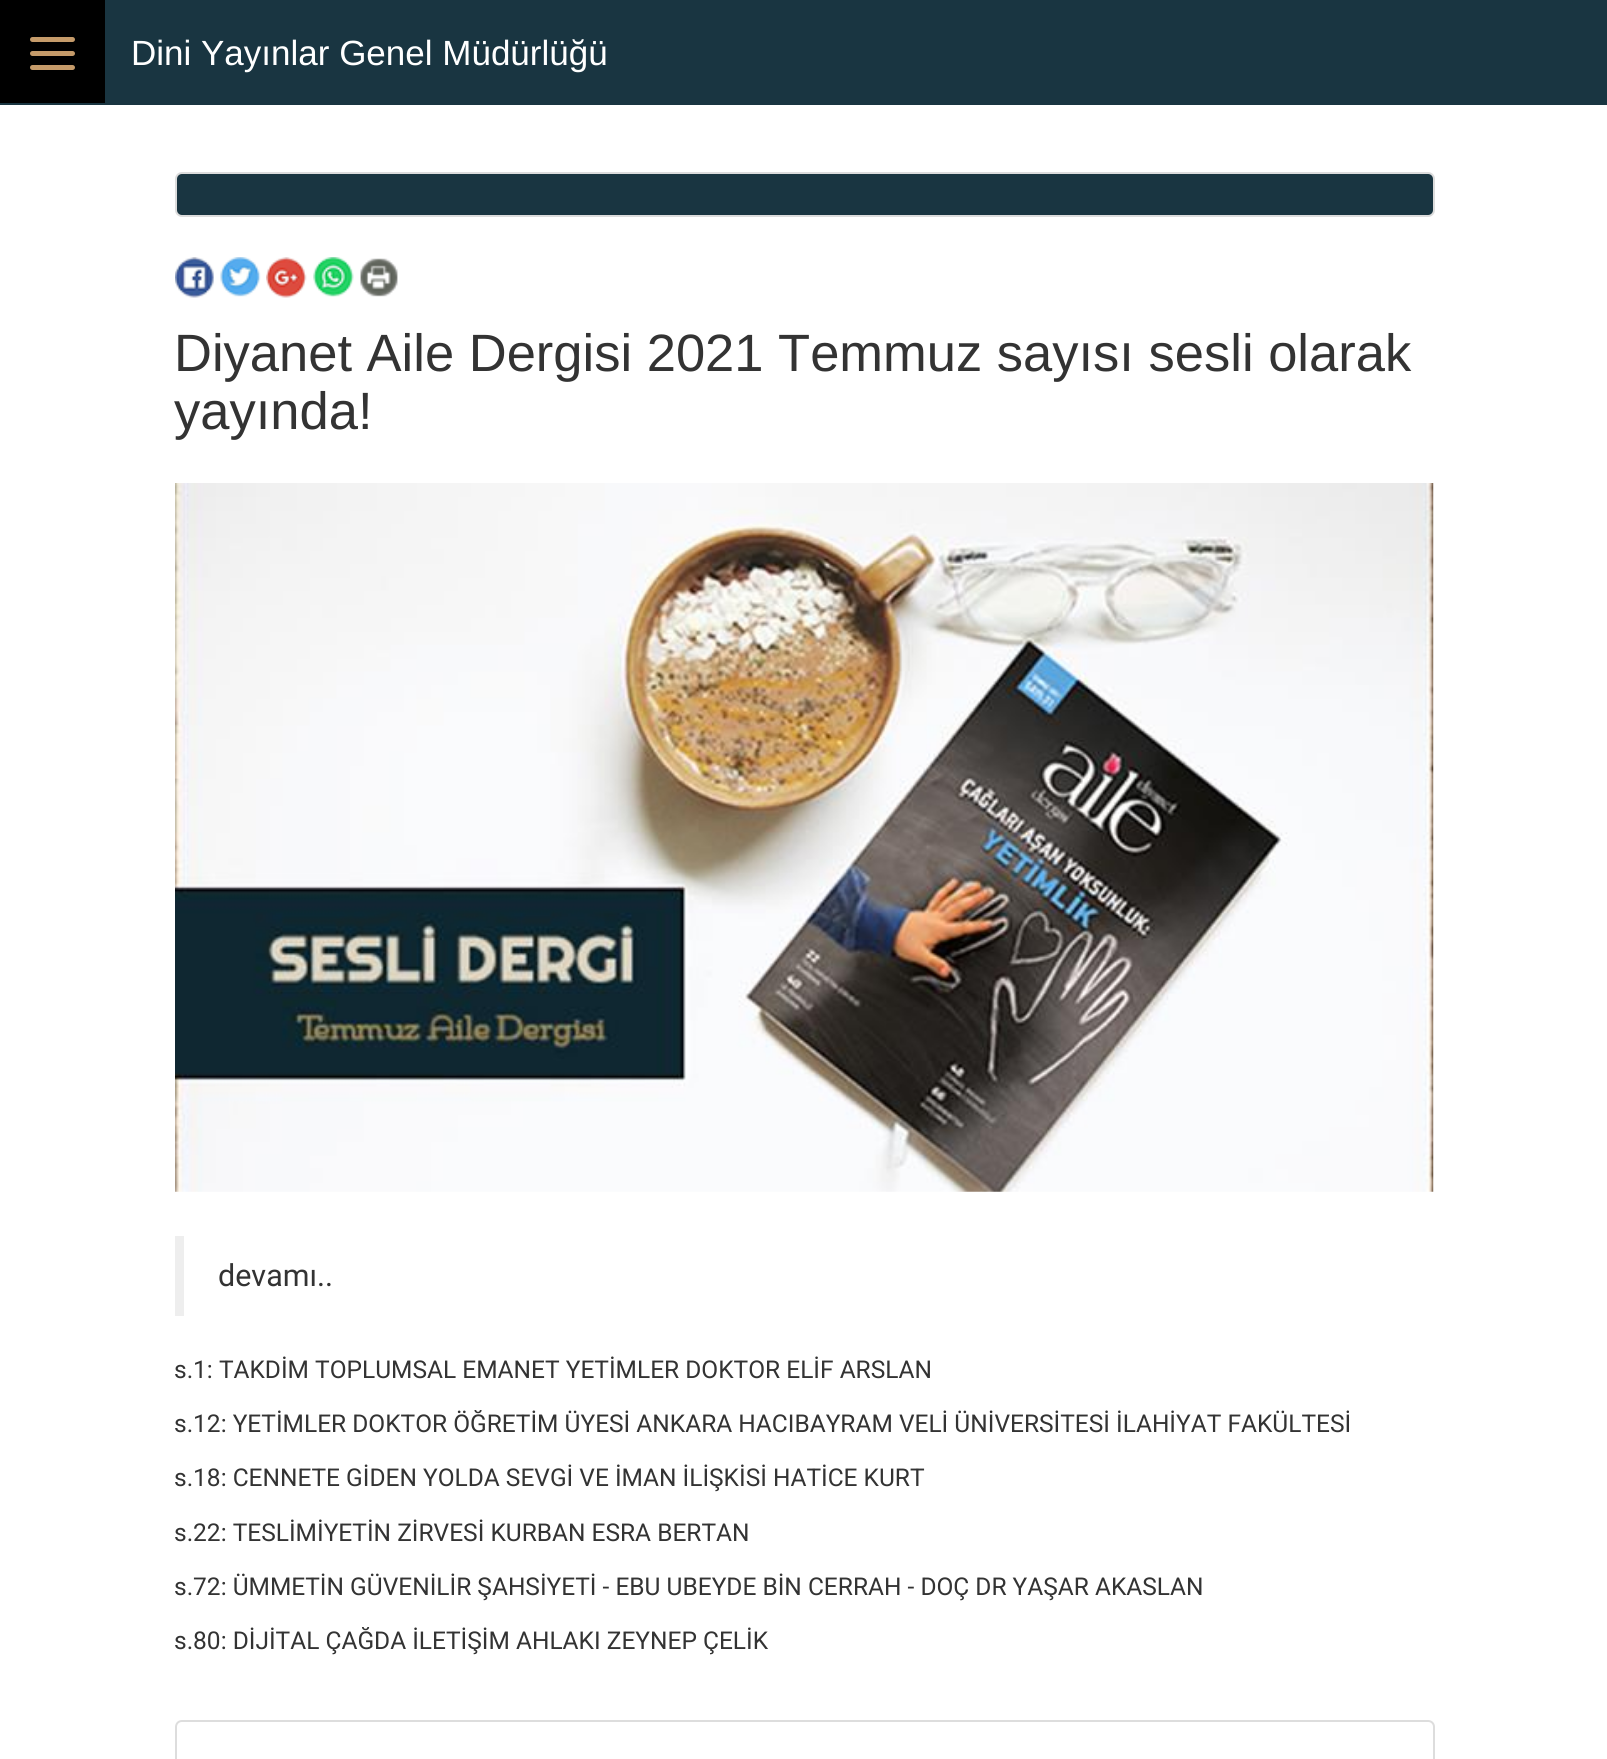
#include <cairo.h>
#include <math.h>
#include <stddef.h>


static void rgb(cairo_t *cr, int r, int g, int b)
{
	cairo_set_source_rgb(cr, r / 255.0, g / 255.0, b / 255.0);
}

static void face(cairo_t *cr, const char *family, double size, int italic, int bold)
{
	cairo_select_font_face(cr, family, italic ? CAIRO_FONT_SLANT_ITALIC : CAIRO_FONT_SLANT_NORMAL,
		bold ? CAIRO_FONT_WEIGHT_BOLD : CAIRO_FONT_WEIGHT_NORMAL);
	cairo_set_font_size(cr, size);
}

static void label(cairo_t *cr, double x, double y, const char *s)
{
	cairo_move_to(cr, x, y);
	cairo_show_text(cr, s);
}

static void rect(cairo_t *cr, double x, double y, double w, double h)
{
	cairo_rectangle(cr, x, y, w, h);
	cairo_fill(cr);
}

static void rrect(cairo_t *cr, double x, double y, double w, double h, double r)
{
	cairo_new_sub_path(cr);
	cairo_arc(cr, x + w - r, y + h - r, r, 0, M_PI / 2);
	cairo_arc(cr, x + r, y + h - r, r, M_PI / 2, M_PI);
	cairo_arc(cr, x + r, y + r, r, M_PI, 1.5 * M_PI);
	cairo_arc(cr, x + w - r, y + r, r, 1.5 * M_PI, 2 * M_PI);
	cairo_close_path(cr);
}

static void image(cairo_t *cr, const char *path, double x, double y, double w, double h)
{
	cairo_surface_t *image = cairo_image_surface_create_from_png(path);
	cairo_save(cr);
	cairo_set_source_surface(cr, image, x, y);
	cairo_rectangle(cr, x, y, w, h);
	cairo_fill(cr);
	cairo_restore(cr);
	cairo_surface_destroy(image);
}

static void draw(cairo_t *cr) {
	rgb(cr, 255, 255, 255);
	cairo_paint(cr);
	rgb(cr, 25, 53, 65);
	rect(cr, 0, 0, 1607, 105);
	rgb(cr, 0, 0, 0);
	rect(cr, 0, 0, 105, 103);
	rgb(cr, 197, 155, 106);
	rrect(cr, 30, 37, 45, 5, 2.5);
	cairo_fill(cr);
	rrect(cr, 30, 51, 45, 5, 2.5);
	cairo_fill(cr);
	rrect(cr, 30, 65, 45, 5, 2.5);
	cairo_fill(cr);
	face(cr, "Liberation Sans", 35, 0, 0);
	rgb(cr, 255, 255, 255);
	label(cr, 131, 65, "Dini Yayınlar Genel Müdürlüğü");
	rgb(cr, 25, 53, 65);
	rrect(cr, 176, 173, 1258, 43, 6);
	cairo_fill_preserve(cr);
	rgb(cr, 220, 220, 220);
	cairo_stroke(cr);
	image(cr, "image0.png", 175, 257, 39, 41);
	image(cr, "image1.png", 220, 257, 41, 40);
	image(cr, "image2.png", 266, 257, 41, 41);
	image(cr, "image3.png", 313, 257, 41, 40);
	image(cr, "image4.png", 360, 258, 38, 39);
	face(cr, "Liberation Sans", 52.5, 0, 0);
	rgb(cr, 51, 51, 51);
	label(cr, 174, 371, "Diyanet Aile Dergisi 2021 Temmuz sayısı sesli olarak");
	label(cr, 174, 429, "yayında!");
	image(cr, "image5.png", 175, 483, 1259, 709);
	rgb(cr, 238, 238, 238);
	rect(cr, 175, 1236, 9, 80);
	face(cr, "Roboto", 30.5, 0, 0);
	rgb(cr, 51, 51, 51);
	label(cr, 218, 1286, "devamı..");
	face(cr, "Roboto", 24.5, 0, 0);
	label(cr, 174, 1378, "s.1: TAKDİM TOPLUMSAL EMANET YETİMLER DOKTOR ELİF ARSLAN");
	label(cr, 174, 1432, "s.12: YETİMLER DOKTOR ÖĞRETİM ÜYESİ ANKARA HACIBAYRAM VELİ ÜNİVERSİTESİ İLAHİYAT FAKÜLTESİ");
	label(cr, 174, 1486, "s.18: CENNETE GİDEN YOLDA SEVGİ VE İMAN İLİŞKİSİ HATİCE KURT");
	label(cr, 174, 1541, "s.22: TESLİMİYETİN ZİRVESİ KURBAN ESRA BERTAN");
	label(cr, 174, 1595, "s.72: ÜMMETİN GÜVENİLİR ŞAHSİYETİ - EBU UBEYDE BİN CERRAH - DOÇ DR YAŞAR AKASLAN");
	label(cr, 174, 1649, "s.80: DİJİTAL ÇAĞDA İLETİŞİM AHLAKI ZEYNEP ÇELİK");
	cairo_new_path(cr);
	cairo_move_to(cr, 182, 1721);
	cairo_line_to(cr, 1428, 1721);
	cairo_curve_to(cr, 1431.5, 1721, 1434, 1723.5, 1434, 1727);
	cairo_line_to(cr, 1434, 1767);
	cairo_line_to(cr, 176, 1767);
	cairo_line_to(cr, 176, 1727);
	cairo_curve_to(cr, 176, 1723.5, 178.5, 1721, 182, 1721);
	cairo_close_path(cr);
	rgb(cr, 221, 221, 221);
	cairo_stroke(cr);
}

int main(void) {
	cairo_surface_t *surface = cairo_image_surface_create(CAIRO_FORMAT_RGB24, 1607, 1759);
	cairo_t *cr = cairo_create(surface);
	cairo_font_options_t *options = cairo_font_options_create();
	cairo_font_options_set_hint_metrics(options, CAIRO_HINT_METRICS_OFF);
	cairo_font_options_set_hint_style(options, CAIRO_HINT_STYLE_NONE);
	cairo_set_font_options(cr, options);
	cairo_set_miter_limit(cr, 4);
	draw(cr);
	cairo_surface_write_to_png(surface, "render.png");
	cairo_font_options_destroy(options);
	cairo_destroy(cr);
	cairo_surface_destroy(surface);
	return 0;
}
